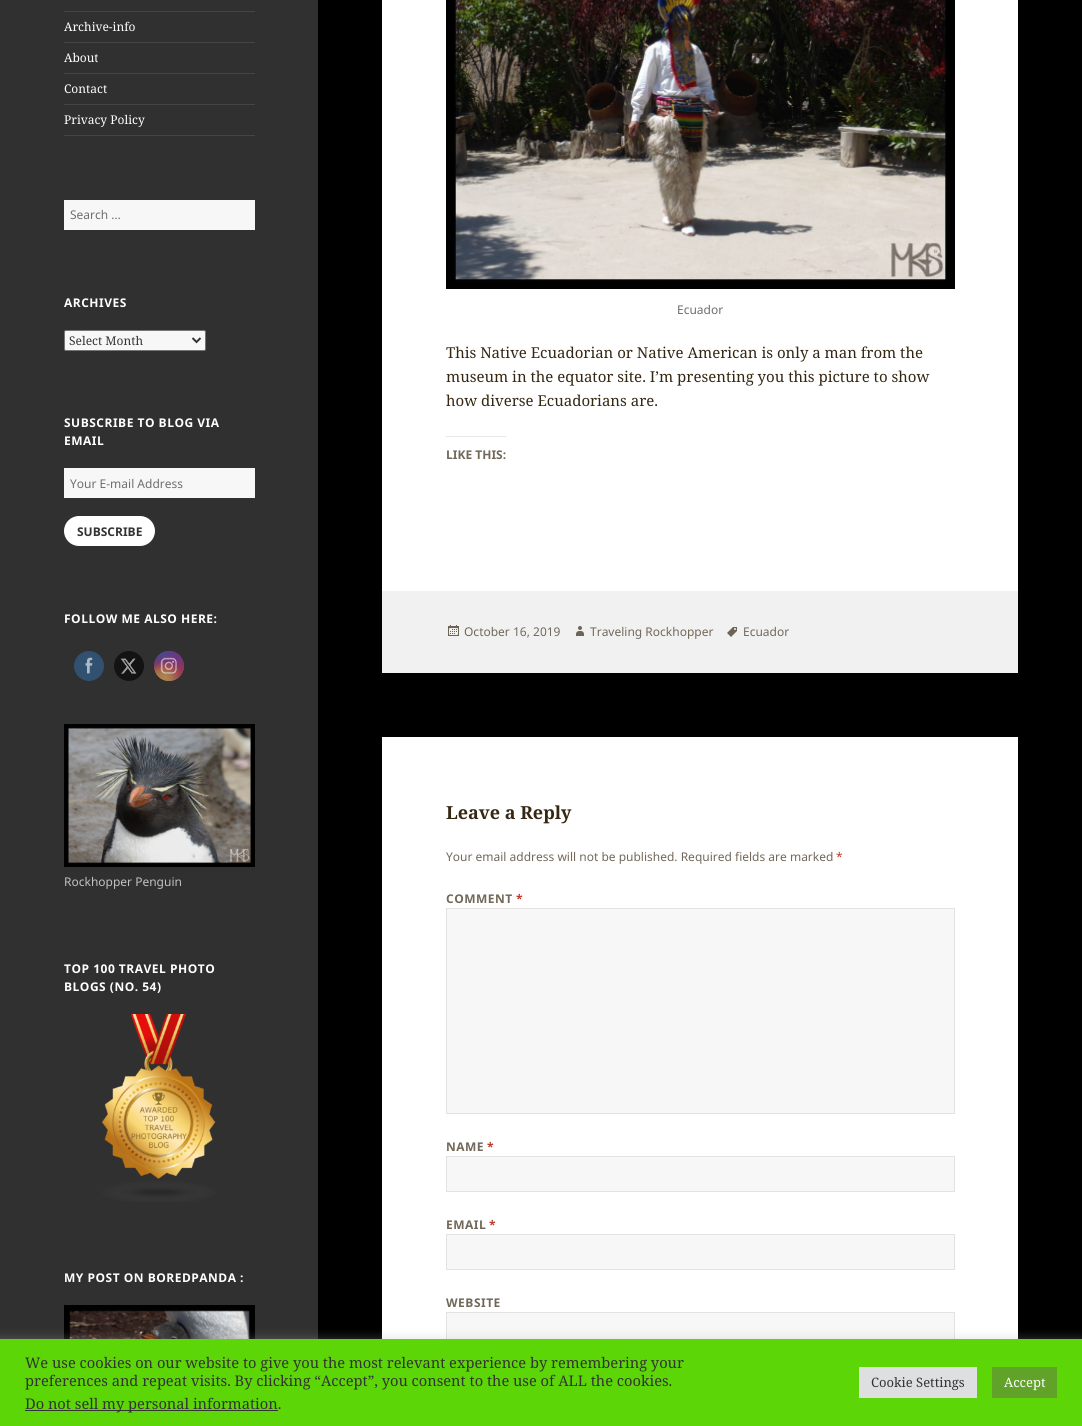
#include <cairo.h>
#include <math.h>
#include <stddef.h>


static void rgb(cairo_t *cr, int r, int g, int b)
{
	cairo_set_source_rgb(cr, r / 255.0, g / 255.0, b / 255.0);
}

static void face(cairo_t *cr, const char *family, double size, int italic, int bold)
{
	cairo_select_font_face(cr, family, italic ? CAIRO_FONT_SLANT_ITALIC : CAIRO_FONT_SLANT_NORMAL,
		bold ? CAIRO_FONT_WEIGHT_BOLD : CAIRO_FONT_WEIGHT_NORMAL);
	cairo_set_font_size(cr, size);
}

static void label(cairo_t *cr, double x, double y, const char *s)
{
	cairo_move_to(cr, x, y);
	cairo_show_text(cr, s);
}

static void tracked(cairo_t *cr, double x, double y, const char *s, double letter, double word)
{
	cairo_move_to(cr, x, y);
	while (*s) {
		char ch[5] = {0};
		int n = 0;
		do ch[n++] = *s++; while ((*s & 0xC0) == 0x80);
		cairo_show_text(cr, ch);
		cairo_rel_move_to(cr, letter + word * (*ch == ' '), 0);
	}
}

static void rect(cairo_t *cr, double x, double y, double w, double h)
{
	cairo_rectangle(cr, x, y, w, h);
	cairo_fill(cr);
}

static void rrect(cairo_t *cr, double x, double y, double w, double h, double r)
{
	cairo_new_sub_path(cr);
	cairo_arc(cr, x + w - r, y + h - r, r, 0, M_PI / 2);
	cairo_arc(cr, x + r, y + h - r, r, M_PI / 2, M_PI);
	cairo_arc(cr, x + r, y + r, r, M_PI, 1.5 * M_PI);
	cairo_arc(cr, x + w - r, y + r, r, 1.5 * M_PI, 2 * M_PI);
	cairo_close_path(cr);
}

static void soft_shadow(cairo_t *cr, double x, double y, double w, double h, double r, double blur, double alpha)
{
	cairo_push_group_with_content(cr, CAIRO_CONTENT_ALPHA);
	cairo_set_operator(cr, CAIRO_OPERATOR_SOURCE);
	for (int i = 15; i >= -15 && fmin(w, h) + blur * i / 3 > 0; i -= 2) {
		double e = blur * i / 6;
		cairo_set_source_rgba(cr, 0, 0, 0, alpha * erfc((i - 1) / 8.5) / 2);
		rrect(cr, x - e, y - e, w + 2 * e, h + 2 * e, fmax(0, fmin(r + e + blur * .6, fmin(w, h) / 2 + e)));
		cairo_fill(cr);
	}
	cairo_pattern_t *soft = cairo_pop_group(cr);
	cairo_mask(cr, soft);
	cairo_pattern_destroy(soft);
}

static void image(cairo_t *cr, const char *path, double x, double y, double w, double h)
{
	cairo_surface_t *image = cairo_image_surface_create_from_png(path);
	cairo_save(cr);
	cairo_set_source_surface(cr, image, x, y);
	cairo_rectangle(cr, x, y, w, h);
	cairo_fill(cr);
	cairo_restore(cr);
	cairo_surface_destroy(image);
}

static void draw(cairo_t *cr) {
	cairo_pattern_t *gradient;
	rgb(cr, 0, 0, 0);
	cairo_paint(cr);
	rgb(cr, 48, 48, 48);
	rect(cr, 0, 0, 318, 1339);
	rgb(cr, 69, 69, 69);
	rect(cr, 64, 135, 191, 1);
	rect(cr, 64, 11, 191, 1);
	face(cr, "Noto Serif", 12, 0, 0);
	rgb(cr, 255, 255, 255);
	label(cr, 64, 31, "Archive-info");
	rgb(cr, 69, 69, 69);
	rect(cr, 64, 42, 191, 1);
	rgb(cr, 255, 255, 255);
	label(cr, 64, 62, "About");
	rgb(cr, 69, 69, 69);
	rect(cr, 64, 73, 191, 1);
	rgb(cr, 255, 255, 255);
	label(cr, 64, 93, "Contact");
	rgb(cr, 69, 69, 69);
	rect(cr, 64, 104, 191, 1);
	rgb(cr, 255, 255, 255);
	label(cr, 64, 124, "Privacy Policy");
	rgb(cr, 247, 247, 247);
	rect(cr, 64, 200, 191, 30);
	face(cr, "Noto Sans", 12, 0, 0);
	rgb(cr, 110, 110, 110);
	label(cr, 70, 219, "Search …");
	face(cr, "Noto Sans", 12, 0, 1);
	rgb(cr, 255, 255, 255);
	tracked(cr, 64, 307, "ARCHIVES", 0.5, 0);
	rgb(cr, 247, 247, 247);
	rrect(cr, 64.5, 330.5, 141, 20, 1.5);
	cairo_fill_preserve(cr);
	rgb(cr, 118, 118, 118);
	cairo_set_line_width(cr, 1);
	cairo_stroke(cr);
	cairo_new_path(cr);
	cairo_move_to(cr, 192.5, 338);
	cairo_line_to(cr, 196.5, 342);
	cairo_line_to(cr, 200.5, 338);
	rgb(cr, 51, 51, 51);
	cairo_set_line_width(cr, 2);
	cairo_stroke(cr);
	face(cr, "Noto Serif", 12, 0, 0);
	label(cr, 69, 345, "Select Month");
	face(cr, "Noto Sans", 12, 0, 1);
	rgb(cr, 255, 255, 255);
	tracked(cr, 64, 427, "SUBSCRIBE TO BLOG VIA", 0.5, 0);
	tracked(cr, 64, 445, "EMAIL", 0.5, 0);
	rgb(cr, 247, 247, 247);
	rect(cr, 64, 468, 191, 30);
	face(cr, "Noto Sans", 12, 0, 0);
	rgb(cr, 110, 110, 110);
	label(cr, 70, 488, "Your E-mail Address");
	rgb(cr, 255, 255, 255);
	rrect(cr, 64, 516, 91, 30, 15);
	cairo_fill(cr);
	face(cr, "Noto Sans", 12, 0, 1);
	rgb(cr, 51, 51, 51);
	label(cr, 77, 536, "SUBSCRIBE");
	rgb(cr, 255, 255, 255);
	tracked(cr, 64, 623, "FOLLOW ME ALSO HERE:", 0.5, 0);
	rgb(cr, 50, 80, 111);
	cairo_new_path(cr);
	cairo_arc(cr, 89, 666, 15, 0, 2 * M_PI);
	cairo_fill(cr);
	image(cr, "image0.png", 85, 657, 8, 17);
	rgb(cr, 19, 19, 19);
	cairo_arc(cr, 129, 666, 15, 0, 2 * M_PI);
	cairo_fill(cr);
	image(cr, "image1.png", 120, 658, 17, 16);
	gradient = cairo_pattern_create_linear(169, 651, 169, 681);
	cairo_pattern_add_color_stop_rgba(gradient, 0, 0.314, 0.286, 0.549, 1);
	cairo_pattern_add_color_stop_rgba(gradient, 0.3, 0.518, 0.192, 0.412, 1);
	cairo_pattern_add_color_stop_rgba(gradient, 0.5, 0.608, 0.224, 0.298, 1);
	cairo_pattern_add_color_stop_rgba(gradient, 0.7, 0.655, 0.353, 0.208, 1);
	cairo_pattern_add_color_stop_rgba(gradient, 1, 0.675, 0.541, 0.333, 1);
	cairo_set_source(cr, gradient);
	cairo_pattern_destroy(gradient);
	cairo_arc(cr, 169, 666, 15, 0, 2 * M_PI);
	cairo_fill(cr);
	gradient = cairo_pattern_create_radial(184, 681, 0, 184, 681, 42);
	cairo_pattern_add_color_stop_rgba(gradient, 0, 0.584, 0.192, 0.361, 1);
	cairo_pattern_add_color_stop_rgba(gradient, 1, 0.584, 0.192, 0.361, 0);
	cairo_set_source(cr, gradient);
	cairo_pattern_destroy(gradient);
	cairo_arc(cr, 169, 666, 15, 0, 2 * M_PI);
	cairo_fill(cr);
	gradient = cairo_pattern_create_radial(0, 0, 0, 0, 0, 1);
	cairo_pattern_set_matrix(gradient, &(cairo_matrix_t){1.0 / 25, 0, 0, 1.0 / 51, -1.0 * 172 / 25, -1.0 * 645 / 51});
	cairo_pattern_add_color_stop_rgba(gradient, 0, 0.396, 0.22, 0.533, 1);
	cairo_pattern_add_color_stop_rgba(gradient, 0.5, 0.396, 0.22, 0.533, 0);
	cairo_set_source(cr, gradient);
	cairo_pattern_destroy(gradient);
	cairo_arc(cr, 169, 666, 15, 0, 2 * M_PI);
	cairo_fill(cr);
	gradient = cairo_pattern_create_radial(184, 651, 0, 184, 651, 42);
	cairo_pattern_add_color_stop_rgba(gradient, 0, 0.396, 0.22, 0.533, 1);
	cairo_pattern_add_color_stop_rgba(gradient, 0.5, 0.396, 0.22, 0.533, 0);
	cairo_set_source(cr, gradient);
	cairo_pattern_destroy(gradient);
	cairo_arc(cr, 169, 666, 15, 0, 2 * M_PI);
	cairo_fill(cr);
	gradient = cairo_pattern_create_radial(0, 0, 0, 0, 0, 1);
	cairo_pattern_set_matrix(gradient, &(cairo_matrix_t){1.0 / 34, 0, 0, 1.0 / 64, -1.0 * 160 / 34, -1.0 * 636 / 64});
	cairo_pattern_add_color_stop_rgba(gradient, 0, 0.267, 0.282, 0.561, 1);
	cairo_pattern_add_color_stop_rgba(gradient, 0.5, 0.267, 0.282, 0.561, 0);
	cairo_set_source(cr, gradient);
	cairo_pattern_destroy(gradient);
	cairo_arc(cr, 169, 666, 15, 0, 2 * M_PI);
	cairo_fill(cr);
	gradient = cairo_pattern_create_radial(0, 0, 0, 0, 0, 1);
	cairo_pattern_set_matrix(gradient, &(cairo_matrix_t){1.0 / 42, 0, 0, 1.0 / 53, -1.0 * 154 / 42, -1.0 * 644 / 53});
	cairo_pattern_add_color_stop_rgba(gradient, 0, 0.267, 0.282, 0.561, 1);
	cairo_pattern_add_color_stop_rgba(gradient, 0.5, 0.267, 0.282, 0.561, 0);
	cairo_set_source(cr, gradient);
	cairo_pattern_destroy(gradient);
	cairo_arc(cr, 169, 666, 15, 0, 2 * M_PI);
	cairo_fill(cr);
	gradient = cairo_pattern_create_radial(154, 693, 0, 154, 693, 52);
	cairo_pattern_add_color_stop_rgba(gradient, 0, 0.675, 0.537, 0.31, 1);
	cairo_pattern_add_color_stop_rgba(gradient, 0.5, 0.675, 0.537, 0.31, 0);
	cairo_set_source(cr, gradient);
	cairo_pattern_destroy(gradient);
	cairo_arc(cr, 169, 666, 15, 0, 2 * M_PI);
	cairo_fill(cr);
	gradient = cairo_pattern_create_radial(165, 678, 0, 165, 678, 33);
	cairo_pattern_add_color_stop_rgba(gradient, 0, 0.675, 0.537, 0.31, 1);
	cairo_pattern_add_color_stop_rgba(gradient, 0.5, 0.675, 0.537, 0.31, 0);
	cairo_set_source(cr, gradient);
	cairo_pattern_destroy(gradient);
	cairo_arc(cr, 169, 666, 15, 0, 2 * M_PI);
	cairo_fill(cr);
	image(cr, "image2.png", 160, 657, 17, 17);
	image(cr, "image3.png", 64, 724, 191, 143);
	face(cr, "Noto Sans", 12, 0, 0);
	rgb(cr, 193, 193, 193);
	label(cr, 64, 886, "Rockhopper Penguin");
	face(cr, "Noto Sans", 12, 0, 1);
	rgb(cr, 255, 255, 255);
	tracked(cr, 64, 973, "TOP 100 TRAVEL PHOTO", 0.5, 0);
	tracked(cr, 64, 991, "BLOGS (NO. 54)", 0.5, 0);
	image(cr, "image4.png", 101, 1014, 115, 188);
	tracked(cr, 64, 1282, "MY POST ON BOREDPANDA :", 0.5, 0);
	image(cr, "image5.png", 64, 1305, 191, 34);
	rect(cr, 382, 0, 636, 591);
	image(cr, "image6.png", 446, 0, 509, 289);
	face(cr, "Noto Sans", 12, 0, 0);
	rgb(cr, 110, 110, 110);
	label(cr, 677, 314, "Ecuador");
	face(cr, "Noto Serif", 15, 0, 0);
	rgb(cr, 53, 39, 18);
	label(cr, 446, 358, "This Native Ecuadorian or Native American is only a man from the");
	label(cr, 446, 382, "museum in the equator site. I’m presenting you this picture to show");
	label(cr, 446, 406, "how diverse Ecuadorians are.");
	rgb(cr, 231, 231, 232);
	rect(cr, 446, 436, 60, 1);
	face(cr, "Noto Sans", 12, 0, 1);
	rgb(cr, 114, 104, 89);
	label(cr, 446, 459, "LIKE THIS:");
	rgb(cr, 241, 241, 241);
	rect(cr, 382, 591, 636, 82);
	image(cr, "image7.png", 448, 625, 11, 11);
	face(cr, "Noto Sans", 12, 0, 0);
	rgb(cr, 114, 104, 89);
	label(cr, 464, 636, "October 16, 2019");
	image(cr, "image8.png", 576, 626, 8, 10);
	label(cr, 590, 636, "Traveling Rockhopper");
	image(cr, "image9.png", 727, 627, 10, 10);
	label(cr, 743, 636, "Ecuador");
	rgb(cr, 255, 255, 255);
	rect(cr, 382, 737, 636, 602);
	face(cr, "Noto Serif", 18, 0, 1);
	rgb(cr, 53, 39, 18);
	label(cr, 446, 819, "Leave a Reply");
	face(cr, "Noto Sans", 12, 0, 0);
	rgb(cr, 114, 104, 89);
	label(cr, 446, 861, "Your email address will not be published. Required fields are marked");
	rgb(cr, 192, 57, 43);
	label(cr, 836, 861, "*");
	face(cr, "Noto Sans", 12, 0, 1);
	rgb(cr, 114, 104, 89);
	tracked(cr, 446, 903, "COMMENT", 0.5, 0);
	rgb(cr, 192, 57, 43);
	tracked(cr, 516, 903, "*", 0.5, 0);
	rgb(cr, 247, 247, 247);
	cairo_rectangle(cr, 446.5, 908.5, 508, 205);
	cairo_fill_preserve(cr);
	rgb(cr, 228, 226, 224);
	cairo_set_line_width(cr, 1);
	cairo_stroke(cr);
	rgb(cr, 114, 104, 89);
	tracked(cr, 446, 1151, "NAME", 0.5, 0);
	rgb(cr, 192, 57, 43);
	tracked(cr, 487, 1151, "*", 0.5, 0);
	rgb(cr, 247, 247, 247);
	cairo_rectangle(cr, 446.5, 1156.5, 508, 35);
	cairo_fill_preserve(cr);
	rgb(cr, 228, 226, 224);
	cairo_stroke(cr);
	rgb(cr, 114, 104, 89);
	tracked(cr, 446, 1229, "EMAIL", 0.5, 0);
	rgb(cr, 192, 57, 43);
	tracked(cr, 489, 1229, "*", 0.5, 0);
	rgb(cr, 247, 247, 247);
	cairo_rectangle(cr, 446.5, 1234.5, 508, 35);
	cairo_fill_preserve(cr);
	rgb(cr, 228, 226, 224);
	cairo_stroke(cr);
	rgb(cr, 114, 104, 89);
	tracked(cr, 446, 1307, "WEBSITE", 0.5, 0);
	rgb(cr, 247, 247, 247);
	rect(cr, 447, 1313, 507, 26);
	cairo_rectangle(cr, 446.5, 1312.5, 508, 35);
	rgb(cr, 228, 226, 224);
	cairo_stroke(cr);
	rgb(cr, 172, 171, 171);
	soft_shadow(cr, 0, 1338, 1082, 87, 0, 5, 0.3);
	rgb(cr, 92, 214, 6);
	rect(cr, 0, 1339, 1082, 87);
	face(cr, "Noto Serif", 14.65, 0, 0);
	rgb(cr, 51, 51, 51);
	label(cr, 25, 1368, "We use cookies on our website to give you the most relevant experience by remembering your");
	label(cr, 25, 1386, "preferences and repeat visits. By clicking “Accept”, you consent to the use of ALL the cookies.");
	rect(cr, 25, 1410, 253, 1);
	label(cr, 25, 1409, "Do not sell my personal information.");
	rgb(cr, 222, 223, 224);
	rect(cr, 859, 1367, 118, 31);
	face(cr, "Noto Serif", 13, 0, 0);
	rgb(cr, 51, 51, 51);
	label(cr, 871, 1387, "Cookie Settings");
	rgb(cr, 97, 162, 41);
	rect(cr, 992, 1367, 65, 31);
	rgb(cr, 255, 255, 255);
	label(cr, 1004, 1387, "Accept");
}

int main(void) {
	cairo_surface_t *surface = cairo_image_surface_create(CAIRO_FORMAT_RGB24, 1082, 1426);
	cairo_t *cr = cairo_create(surface);
	cairo_font_options_t *options = cairo_font_options_create();
	cairo_font_options_set_hint_metrics(options, CAIRO_HINT_METRICS_OFF);
	cairo_font_options_set_hint_style(options, CAIRO_HINT_STYLE_NONE);
	cairo_set_font_options(cr, options);
	cairo_set_miter_limit(cr, 4);
	draw(cr);
	cairo_surface_write_to_png(surface, "render.png");
	cairo_font_options_destroy(options);
	cairo_destroy(cr);
	cairo_surface_destroy(surface);
	return 0;
}
